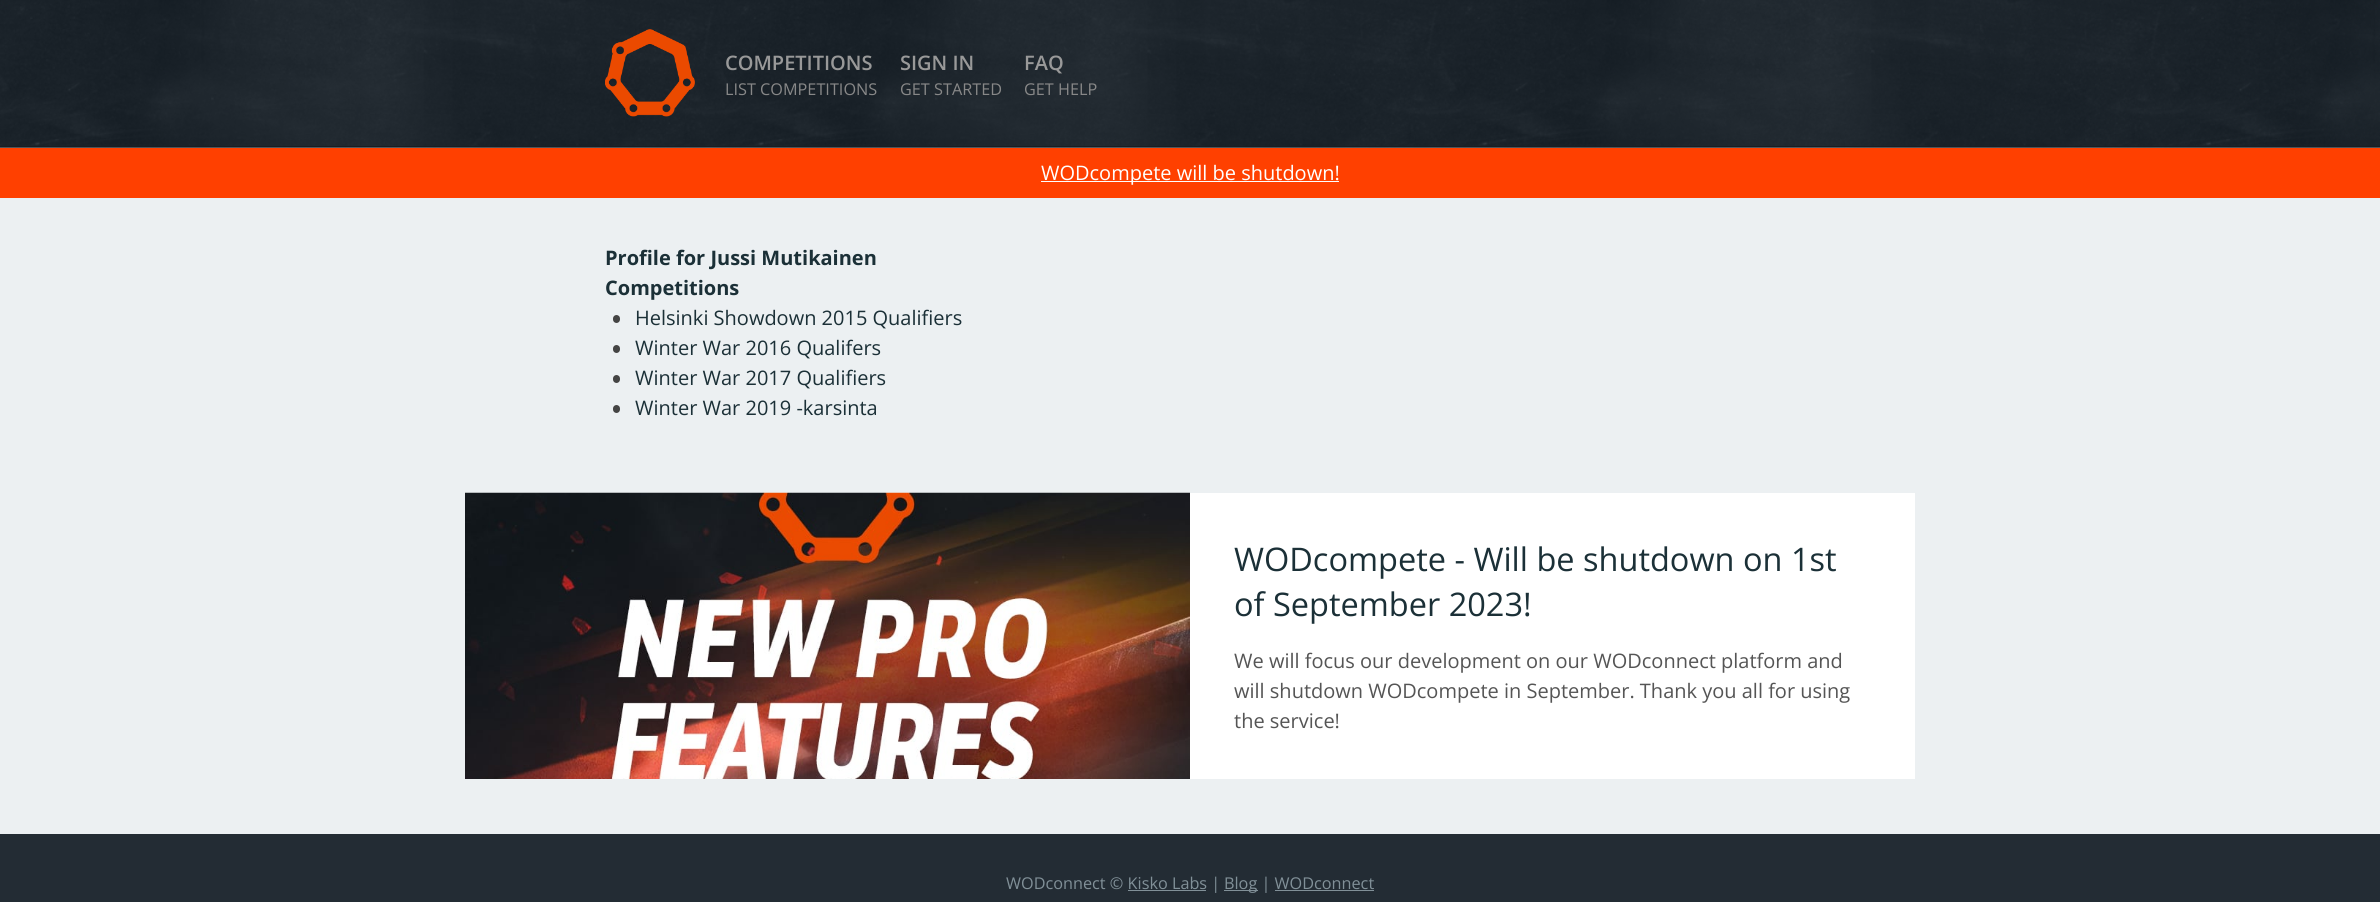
#include <cairo.h>
#include <math.h>
#include <stddef.h>


static void rgb(cairo_t *cr, int r, int g, int b)
{
	cairo_set_source_rgb(cr, r / 255.0, g / 255.0, b / 255.0);
}

static void face(cairo_t *cr, const char *family, double size, int italic, int bold)
{
	cairo_select_font_face(cr, family, italic ? CAIRO_FONT_SLANT_ITALIC : CAIRO_FONT_SLANT_NORMAL,
		bold ? CAIRO_FONT_WEIGHT_BOLD : CAIRO_FONT_WEIGHT_NORMAL);
	cairo_set_font_size(cr, size);
}

static void label(cairo_t *cr, double x, double y, const char *s)
{
	cairo_move_to(cr, x, y);
	cairo_show_text(cr, s);
}

static void rect(cairo_t *cr, double x, double y, double w, double h)
{
	cairo_rectangle(cr, x, y, w, h);
	cairo_fill(cr);
}

static void rrect(cairo_t *cr, double x, double y, double w, double h, double r)
{
	cairo_new_sub_path(cr);
	cairo_arc(cr, x + w - r, y + h - r, r, 0, M_PI / 2);
	cairo_arc(cr, x + r, y + h - r, r, M_PI / 2, M_PI);
	cairo_arc(cr, x + r, y + r, r, M_PI, 1.5 * M_PI);
	cairo_arc(cr, x + w - r, y + r, r, 1.5 * M_PI, 2 * M_PI);
	cairo_close_path(cr);
}

static void image(cairo_t *cr, const char *path, double x, double y, double w, double h)
{
	cairo_surface_t *image = cairo_image_surface_create_from_png(path);
	cairo_save(cr);
	cairo_set_source_surface(cr, image, x, y);
	cairo_rectangle(cr, x, y, w, h);
	cairo_fill(cr);
	cairo_restore(cr);
	cairo_surface_destroy(image);
}

static void draw(cairo_t *cr) {
	rgb(cr, 236, 240, 242);
	cairo_paint(cr);
	image(cr, "image0.png", 0, 0, 2380, 148);
	rgb(cr, 24, 30, 35);
	rect(cr, 0, 146, 2380, 1);
	image(cr, "image1.png", 605, 29, 90, 88);
	face(cr, "Open Sans SemiBold", 20, 0, 0);
	rgb(cr, 153, 153, 153);
	label(cr, 725, 70, "COMPETITIONS");
	face(cr, "Open Sans", 16.25, 0, 0);
	rgb(cr, 136, 136, 136);
	label(cr, 725, 95, "LIST COMPETITIONS");
	face(cr, "Open Sans SemiBold", 20, 0, 0);
	rgb(cr, 153, 153, 153);
	label(cr, 900, 70, "SIGN IN");
	face(cr, "Open Sans", 16.25, 0, 0);
	rgb(cr, 136, 136, 136);
	label(cr, 900, 95, "GET STARTED");
	face(cr, "Open Sans SemiBold", 20, 0, 0);
	rgb(cr, 153, 153, 153);
	label(cr, 1024, 70, "FAQ");
	face(cr, "Open Sans", 16.25, 0, 0);
	rgb(cr, 136, 136, 136);
	label(cr, 1024, 95, "GET HELP");
	rgb(cr, 255, 64, 0);
	rect(cr, 0, 148, 2380, 50);
	rgb(cr, 255, 255, 255);
	rect(cr, 1041, 181, 298, 1);
	face(cr, "Open Sans", 20, 0, 0);
	label(cr, 1041, 180, "WODcompete will be shutdown!");
	face(cr, "Open Sans", 20, 0, 1);
	rgb(cr, 27, 48, 55);
	label(cr, 605, 265, "Profile for Jussi Mutikainen");
	label(cr, 605, 295, "Competitions");
	rgb(cr, 68, 68, 68);
	rrect(cr, 613, 315, 7, 8, 3.5);
	cairo_fill(cr);
	face(cr, "Open Sans", 20, 0, 0);
	rgb(cr, 27, 48, 55);
	label(cr, 635, 325, "Helsinki Showdown 2015 Qualifiers");
	rgb(cr, 68, 68, 68);
	rrect(cr, 613, 345, 7, 8, 3.5);
	cairo_fill(cr);
	rgb(cr, 27, 48, 55);
	label(cr, 635, 355, "Winter War 2016 Qualifers");
	rgb(cr, 68, 68, 68);
	rrect(cr, 613, 375, 7, 8, 3.5);
	cairo_fill(cr);
	rgb(cr, 27, 48, 55);
	label(cr, 635, 385, "Winter War 2017 Qualifiers");
	rgb(cr, 68, 68, 68);
	rrect(cr, 613, 405, 7, 8, 3.5);
	cairo_fill(cr);
	rgb(cr, 27, 48, 55);
	label(cr, 635, 415, "Winter War 2019 -karsinta");
	image(cr, "image2.png", 465, 492, 725, 287);
	rgb(cr, 255, 255, 255);
	rect(cr, 1190, 493, 725, 286);
	face(cr, "Open Sans", 32.5, 0, 0);
	rgb(cr, 27, 48, 55);
	label(cr, 1234, 571, "WODcompete - Will be shutdown on 1st");
	label(cr, 1234, 616, "of September 2023!");
	face(cr, "Open Sans", 20, 0, 0);
	rgb(cr, 85, 85, 85);
	label(cr, 1234, 668, "We will focus our development on our WODconnect platform and");
	label(cr, 1234, 698, "will shutdown WODcompete in September. Thank you all for using");
	label(cr, 1234, 728, "the service!");
	rgb(cr, 35, 44, 52);
	rect(cr, 0, 834, 2380, 68);
	face(cr, "Open Sans", 16.25, 0, 0);
	rgb(cr, 129, 144, 152);
	label(cr, 1006, 889, "WODconnect © Kisko Labs |");
	rect(cr, 1224, 890, 34, 1);
	label(cr, 1224, 889, "Blog | WODconnect");
	rect(cr, 1128, 890, 78, 1);
	rect(cr, 1275, 890, 99, 1);
}

int main(void) {
	cairo_surface_t *surface = cairo_image_surface_create(CAIRO_FORMAT_RGB24, 2380, 902);
	cairo_t *cr = cairo_create(surface);
	cairo_font_options_t *options = cairo_font_options_create();
	cairo_font_options_set_hint_metrics(options, CAIRO_HINT_METRICS_OFF);
	cairo_font_options_set_hint_style(options, CAIRO_HINT_STYLE_NONE);
	cairo_set_font_options(cr, options);
	cairo_set_miter_limit(cr, 4);
	draw(cr);
	cairo_surface_write_to_png(surface, "render.png");
	cairo_font_options_destroy(options);
	cairo_destroy(cr);
	cairo_surface_destroy(surface);
	return 0;
}
